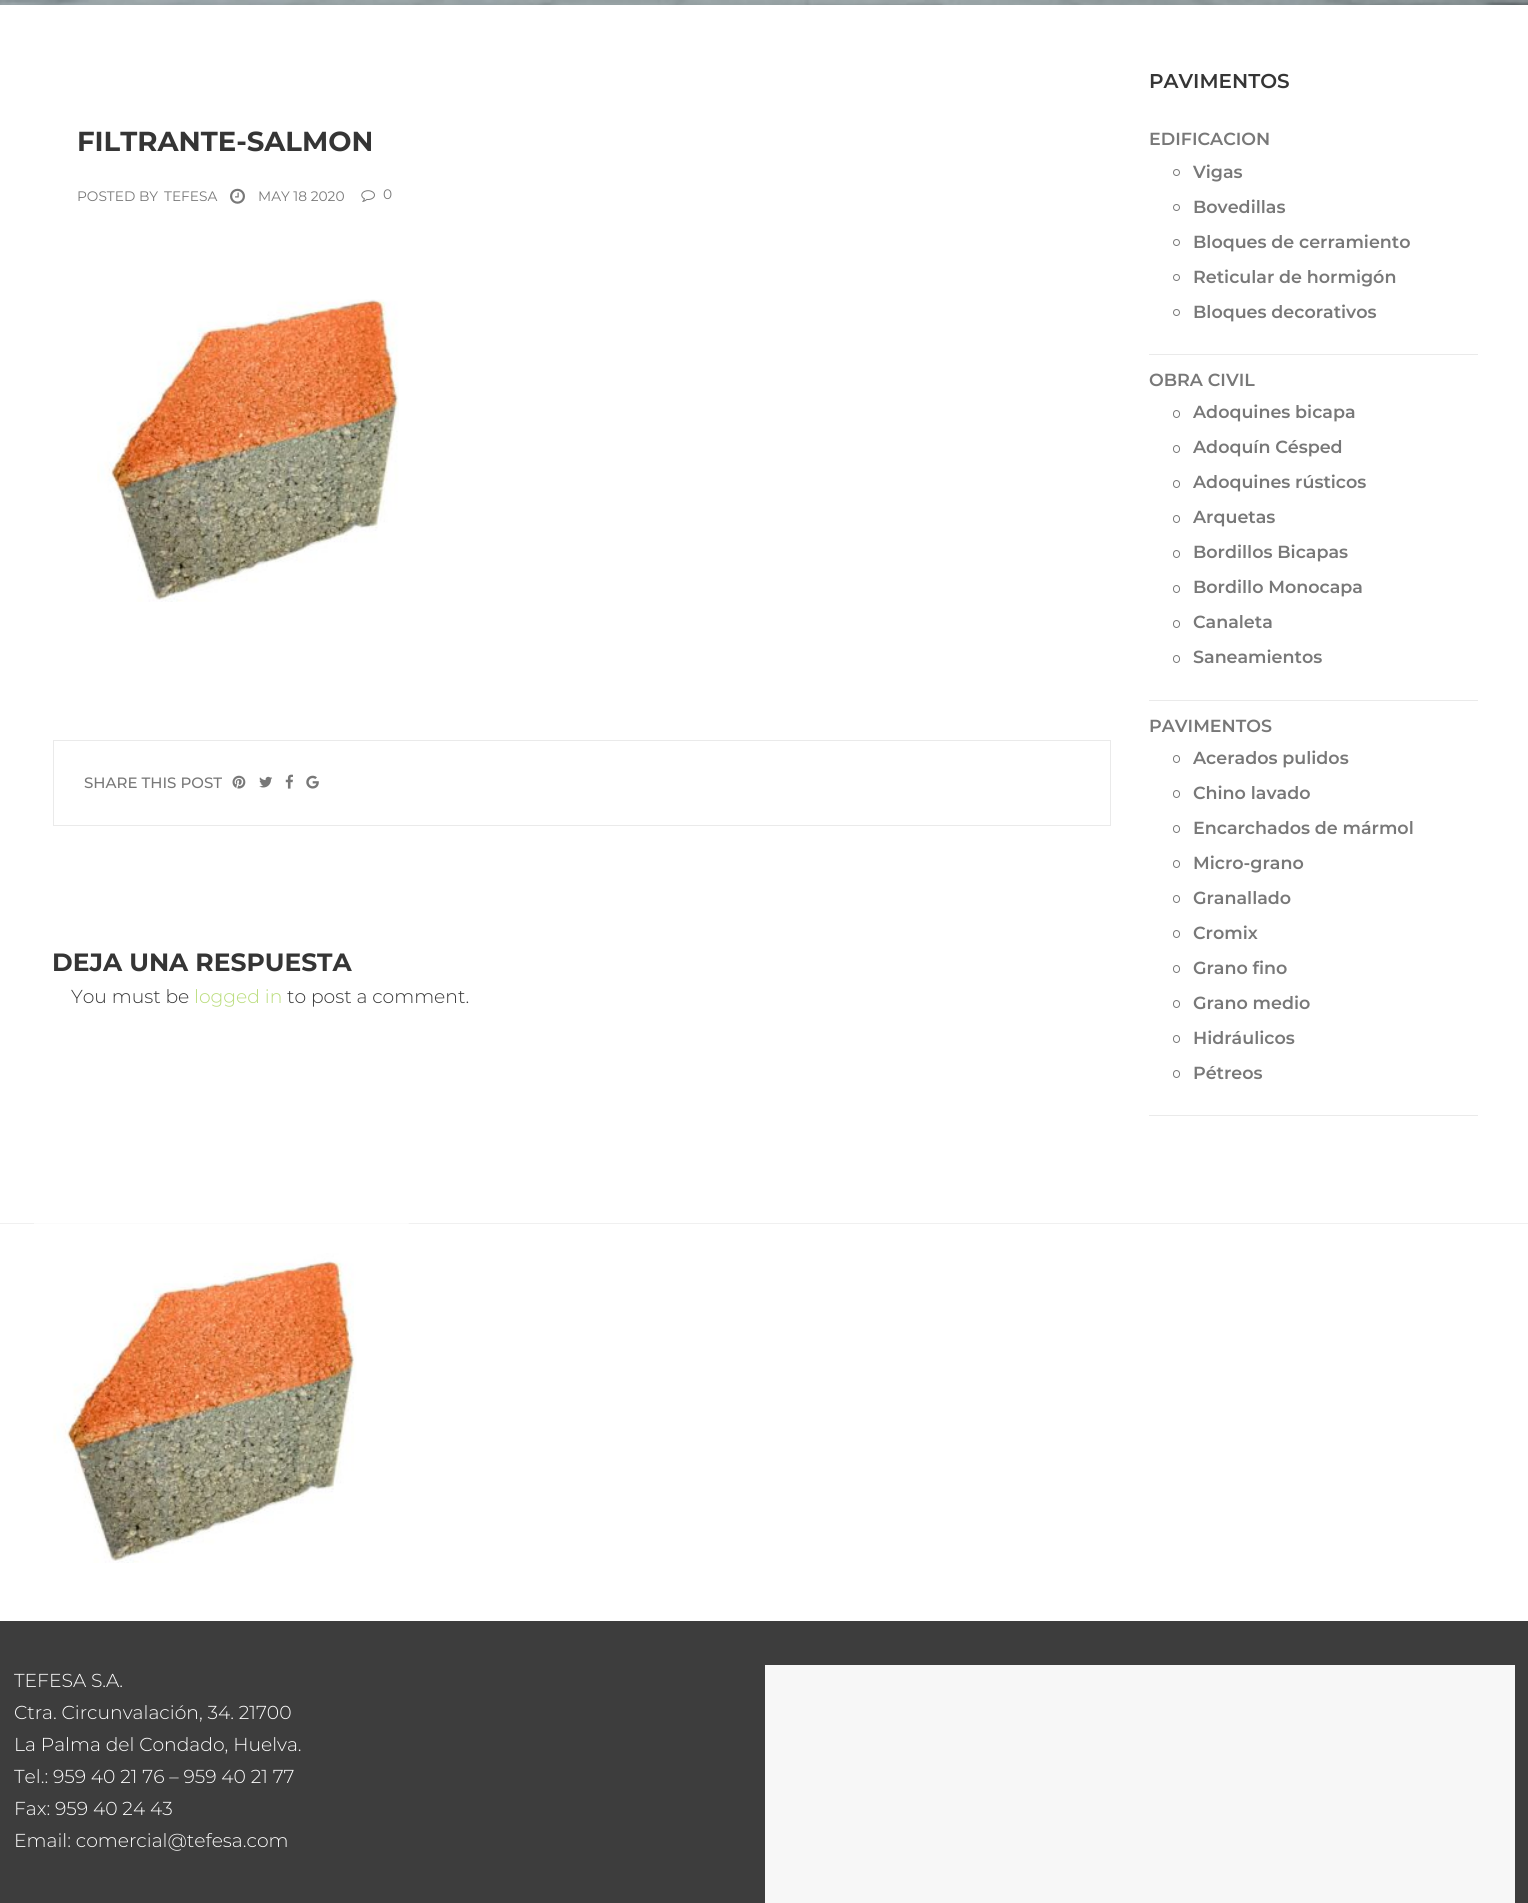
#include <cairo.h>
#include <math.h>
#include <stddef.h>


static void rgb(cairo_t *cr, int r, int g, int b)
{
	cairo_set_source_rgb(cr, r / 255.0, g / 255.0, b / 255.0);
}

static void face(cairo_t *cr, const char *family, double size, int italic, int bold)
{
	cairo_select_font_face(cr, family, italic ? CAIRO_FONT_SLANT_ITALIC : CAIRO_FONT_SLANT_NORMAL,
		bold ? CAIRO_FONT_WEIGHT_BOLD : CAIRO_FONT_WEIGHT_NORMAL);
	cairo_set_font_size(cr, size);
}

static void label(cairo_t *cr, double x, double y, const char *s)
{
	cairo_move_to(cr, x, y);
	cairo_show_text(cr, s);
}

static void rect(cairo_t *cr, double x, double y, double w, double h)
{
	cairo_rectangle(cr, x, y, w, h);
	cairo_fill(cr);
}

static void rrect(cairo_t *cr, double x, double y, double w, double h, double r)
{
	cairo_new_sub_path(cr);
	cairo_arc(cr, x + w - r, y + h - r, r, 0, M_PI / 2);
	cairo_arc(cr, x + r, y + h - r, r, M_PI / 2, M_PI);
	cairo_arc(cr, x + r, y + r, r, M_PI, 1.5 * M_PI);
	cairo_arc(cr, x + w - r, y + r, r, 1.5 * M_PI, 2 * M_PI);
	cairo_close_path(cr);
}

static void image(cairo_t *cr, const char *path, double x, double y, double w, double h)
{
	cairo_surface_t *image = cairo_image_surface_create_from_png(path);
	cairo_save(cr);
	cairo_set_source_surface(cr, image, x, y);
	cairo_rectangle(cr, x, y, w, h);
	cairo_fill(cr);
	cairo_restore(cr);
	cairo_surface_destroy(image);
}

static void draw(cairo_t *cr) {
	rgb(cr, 255, 255, 255);
	cairo_paint(cr);
	image(cr, "image0.png", 0, 0, 1528, 5);
	face(cr, "Montserrat", 27.5, 0, 1);
	rgb(cr, 53, 53, 53);
	label(cr, 77, 151, "FILTRANTE-SALMON");
	face(cr, "Montserrat", 13.75, 0, 0);
	rgb(cr, 120, 120, 120);
	label(cr, 77, 201, "POSTED BY");
	label(cr, 164, 201, "TEFESA");
	image(cr, "image1.png", 230, 188, 15, 16);
	label(cr, 258, 201, "MAY 18 2020");
	image(cr, "image2.png", 361, 190, 14, 12);
	label(cr, 383, 199, "0");
	image(cr, "image3.png", 97, 299, 302, 303);
	cairo_rectangle(cr, 53.5, 740.5, 1057, 85);
	rgb(cr, 234, 234, 234);
	cairo_set_line_width(cr, 1);
	cairo_stroke(cr);
	face(cr, "Montserrat Medium", 15, 0, 0);
	rgb(cr, 120, 120, 120);
	label(cr, 84, 788, "SHARE THIS POST");
	image(cr, "image4.png", 232, 775, 14, 14);
	image(cr, "image5.png", 259, 776, 14, 12);
	image(cr, "image6.png", 285, 774, 8, 15);
	image(cr, "image7.png", 306, 775, 13, 14);
	face(cr, "Montserrat", 25, 0, 1);
	rgb(cr, 53, 53, 53);
	label(cr, 52, 971, "DEJA UNA RESPUESTA");
	face(cr, "Montserrat Light", 18.75, 0, 0);
	label(cr, 71, 1003, "You must be");
	rgb(cr, 185, 220, 123);
	label(cr, 194, 1003, "logged in");
	rgb(cr, 53, 53, 53);
	label(cr, 287, 1003, "to post a comment.");
	face(cr, "Montserrat SemiBold", 20, 0, 0);
	label(cr, 1149, 88, "PAVIMENTOS");
	rgb(cr, 234, 234, 234);
	rect(cr, 1149, 354, 329, 1);
	face(cr, "Montserrat SemiBold", 17.5, 0, 0);
	rgb(cr, 120, 120, 120);
	label(cr, 1149, 145, "EDIFICACION");
	cairo_new_path(cr);
	cairo_arc(cr, 1176.5, 172.5, 3, 0, 2 * M_PI);
	cairo_stroke(cr);
	label(cr, 1193, 178, "Vigas");
	cairo_new_path(cr);
	cairo_arc(cr, 1176.5, 207.5, 3, 0, 2 * M_PI);
	cairo_stroke(cr);
	label(cr, 1193, 213, "Bovedillas");
	cairo_new_path(cr);
	cairo_arc(cr, 1176.5, 242.5, 3, 0, 2 * M_PI);
	cairo_stroke(cr);
	label(cr, 1193, 248, "Bloques de cerramiento");
	cairo_new_path(cr);
	cairo_arc(cr, 1176.5, 277.5, 3, 0, 2 * M_PI);
	cairo_stroke(cr);
	label(cr, 1193, 283, "Reticular de hormigón");
	cairo_new_path(cr);
	cairo_arc(cr, 1176.5, 312.5, 3, 0, 2 * M_PI);
	cairo_stroke(cr);
	label(cr, 1193, 318, "Bloques decorativos");
	rgb(cr, 234, 234, 234);
	rect(cr, 1149, 700, 329, 1);
	rgb(cr, 120, 120, 120);
	label(cr, 1149, 386, "OBRA CIVIL");
	rrect(cr, 1173.5, 410.5, 6, 7, 3);
	cairo_stroke(cr);
	label(cr, 1193, 418, "Adoquines bicapa");
	rrect(cr, 1173.5, 445.5, 6, 7, 3);
	cairo_stroke(cr);
	label(cr, 1193, 453, "Adoquín Césped");
	rrect(cr, 1173.5, 480.5, 6, 7, 3);
	cairo_stroke(cr);
	label(cr, 1193, 488, "Adoquines rústicos");
	rrect(cr, 1173.5, 515.5, 6, 7, 3);
	cairo_stroke(cr);
	label(cr, 1193, 523, "Arquetas");
	rrect(cr, 1173.5, 550.5, 6, 7, 3);
	cairo_stroke(cr);
	label(cr, 1193, 558, "Bordillos Bicapas");
	rrect(cr, 1173.5, 585.5, 6, 7, 3);
	cairo_stroke(cr);
	label(cr, 1193, 593, "Bordillo Monocapa");
	rrect(cr, 1173.5, 620.5, 6, 7, 3);
	cairo_stroke(cr);
	label(cr, 1193, 628, "Canaleta");
	rrect(cr, 1173.5, 655.5, 6, 7, 3);
	cairo_stroke(cr);
	label(cr, 1193, 663, "Saneamientos");
	rgb(cr, 234, 234, 234);
	rect(cr, 1149, 1115, 329, 1);
	rgb(cr, 120, 120, 120);
	label(cr, 1149, 732, "PAVIMENTOS");
	rrect(cr, 1173.5, 755.5, 6, 7, 3);
	cairo_stroke(cr);
	label(cr, 1193, 764, "Acerados pulidos");
	rrect(cr, 1173.5, 790.5, 6, 7, 3);
	cairo_stroke(cr);
	label(cr, 1193, 799, "Chino lavado");
	rrect(cr, 1173.5, 825.5, 6, 7, 3);
	cairo_stroke(cr);
	label(cr, 1193, 834, "Encarchados de mármol");
	rrect(cr, 1173.5, 860.5, 6, 7, 3);
	cairo_stroke(cr);
	label(cr, 1193, 869, "Micro-grano");
	rrect(cr, 1173.5, 895.5, 6, 7, 3);
	cairo_stroke(cr);
	label(cr, 1193, 904, "Granallado");
	rrect(cr, 1173.5, 930.5, 6, 7, 3);
	cairo_stroke(cr);
	label(cr, 1193, 939, "Cromix");
	rrect(cr, 1173.5, 965.5, 6, 7, 3);
	cairo_stroke(cr);
	label(cr, 1193, 974, "Grano fino");
	rrect(cr, 1173.5, 1000.5, 6, 7, 3);
	cairo_stroke(cr);
	label(cr, 1193, 1009, "Grano medio");
	rrect(cr, 1173.5, 1035.5, 6, 7, 3);
	cairo_stroke(cr);
	label(cr, 1193, 1044, "Hidráulicos");
	rrect(cr, 1173.5, 1070.5, 6, 7, 3);
	cairo_stroke(cr);
	label(cr, 1193, 1079, "Pétreos");
	rgb(cr, 240, 240, 240);
	rect(cr, 0, 1223, 1528, 1);
	image(cr, "image8.png", 34, 1223, 375, 340);
	rgb(cr, 61, 61, 61);
	rect(cr, 0, 1621, 1528, 282);
	face(cr, "Montserrat Light", 18.75, 0, 0);
	rgb(cr, 255, 255, 255);
	label(cr, 14, 1687, "TEFESA S.A.");
	label(cr, 14, 1719, "Ctra. Circunvalación, 34. 21700");
	label(cr, 14, 1751, "La Palma del Condado, Huelva.");
	label(cr, 14, 1783, "Tel.: 959 40 21 76 – 959 40 21 77");
	label(cr, 14, 1815, "Fax: 959 40 24 43");
	label(cr, 14, 1847, "Email: comercial@tefesa.com");
	rgb(cr, 247, 247, 247);
	rect(cr, 765, 1665, 750, 238);
}

int main(void) {
	cairo_surface_t *surface = cairo_image_surface_create(CAIRO_FORMAT_RGB24, 1528, 1903);
	cairo_t *cr = cairo_create(surface);
	cairo_font_options_t *options = cairo_font_options_create();
	cairo_font_options_set_hint_metrics(options, CAIRO_HINT_METRICS_OFF);
	cairo_font_options_set_hint_style(options, CAIRO_HINT_STYLE_NONE);
	cairo_set_font_options(cr, options);
	cairo_set_miter_limit(cr, 4);
	draw(cr);
	cairo_surface_write_to_png(surface, "render.png");
	cairo_font_options_destroy(options);
	cairo_destroy(cr);
	cairo_surface_destroy(surface);
	return 0;
}
